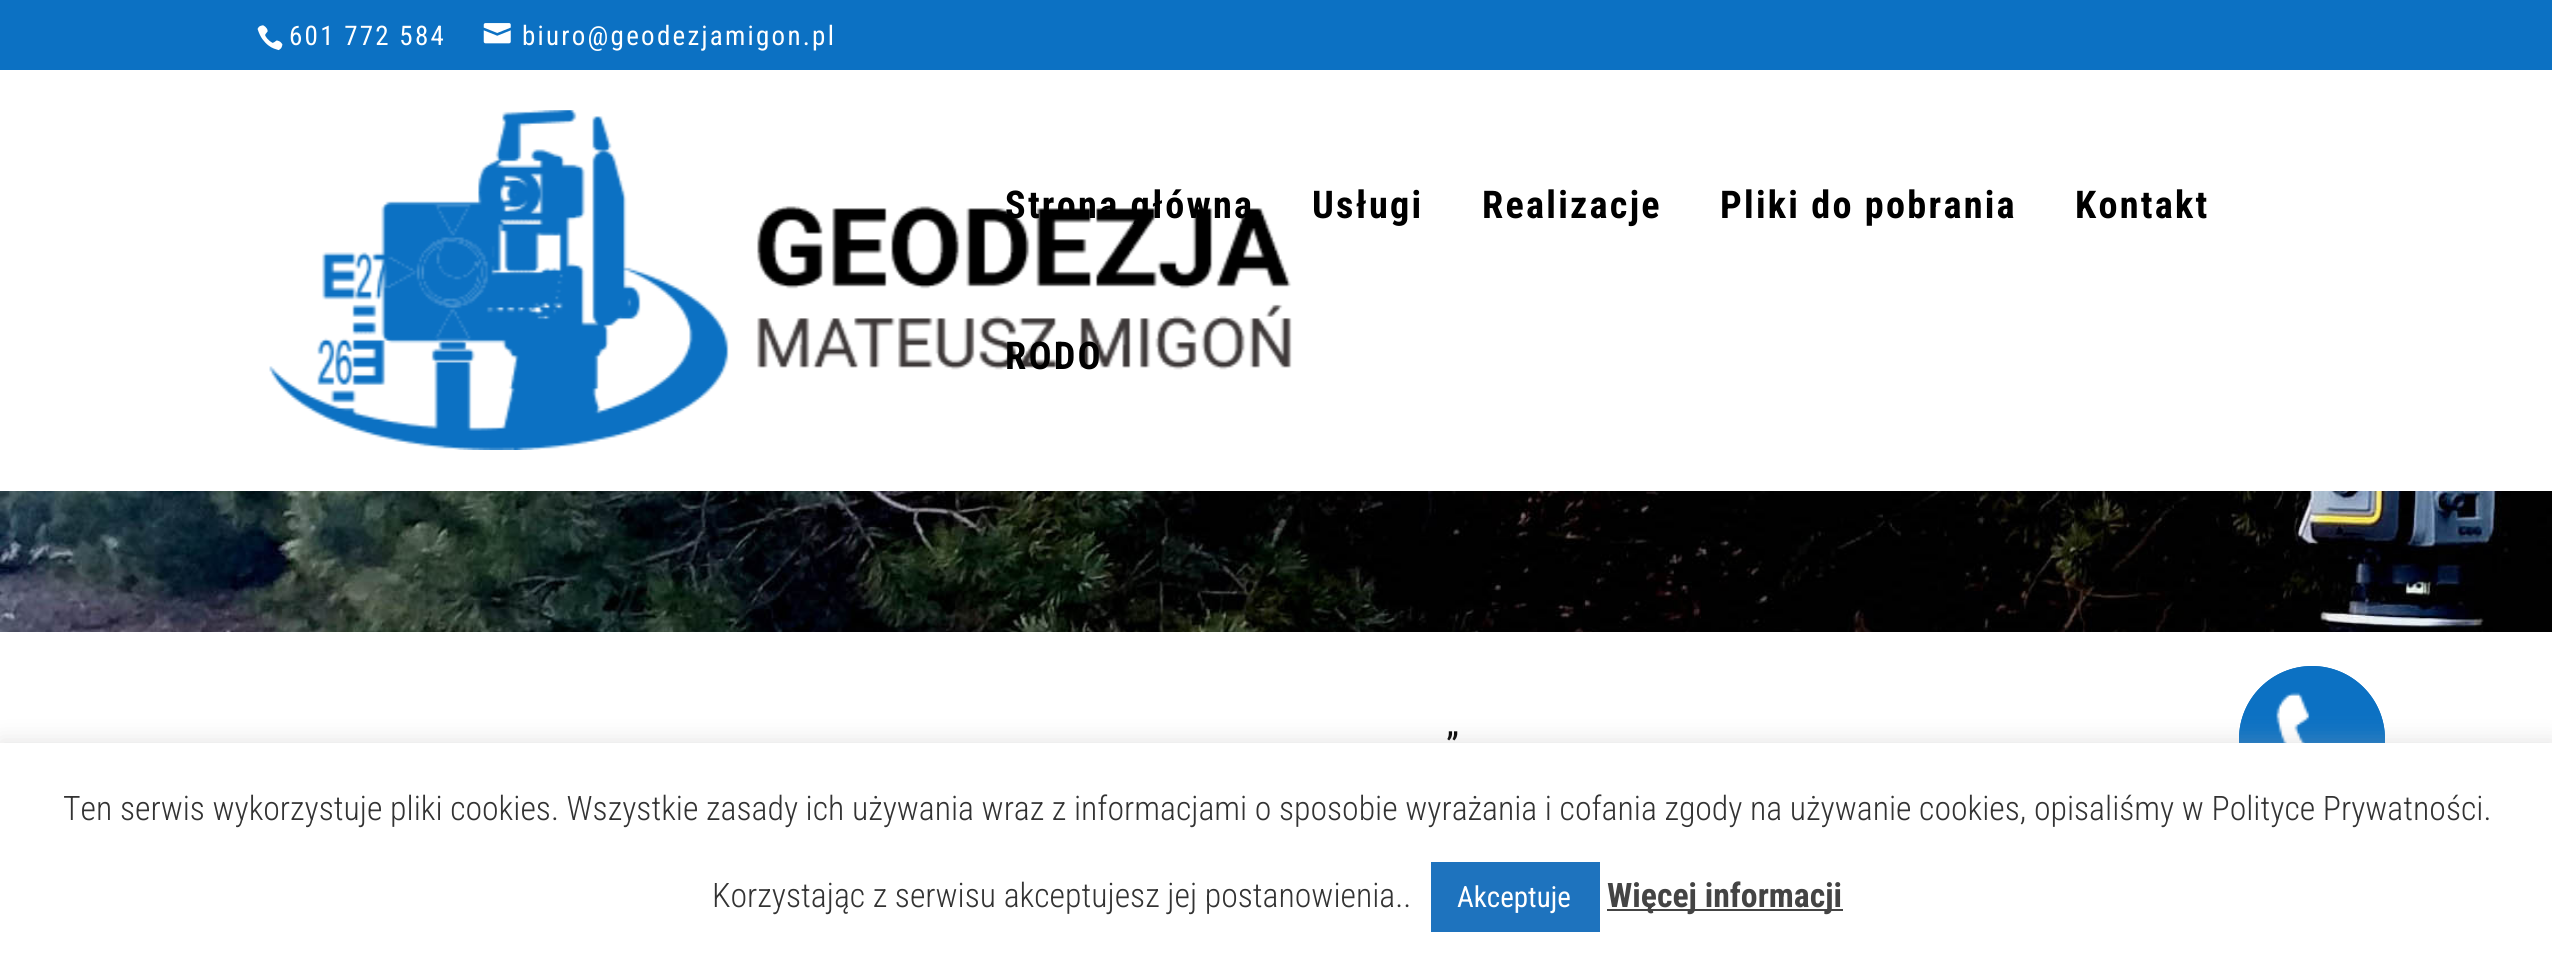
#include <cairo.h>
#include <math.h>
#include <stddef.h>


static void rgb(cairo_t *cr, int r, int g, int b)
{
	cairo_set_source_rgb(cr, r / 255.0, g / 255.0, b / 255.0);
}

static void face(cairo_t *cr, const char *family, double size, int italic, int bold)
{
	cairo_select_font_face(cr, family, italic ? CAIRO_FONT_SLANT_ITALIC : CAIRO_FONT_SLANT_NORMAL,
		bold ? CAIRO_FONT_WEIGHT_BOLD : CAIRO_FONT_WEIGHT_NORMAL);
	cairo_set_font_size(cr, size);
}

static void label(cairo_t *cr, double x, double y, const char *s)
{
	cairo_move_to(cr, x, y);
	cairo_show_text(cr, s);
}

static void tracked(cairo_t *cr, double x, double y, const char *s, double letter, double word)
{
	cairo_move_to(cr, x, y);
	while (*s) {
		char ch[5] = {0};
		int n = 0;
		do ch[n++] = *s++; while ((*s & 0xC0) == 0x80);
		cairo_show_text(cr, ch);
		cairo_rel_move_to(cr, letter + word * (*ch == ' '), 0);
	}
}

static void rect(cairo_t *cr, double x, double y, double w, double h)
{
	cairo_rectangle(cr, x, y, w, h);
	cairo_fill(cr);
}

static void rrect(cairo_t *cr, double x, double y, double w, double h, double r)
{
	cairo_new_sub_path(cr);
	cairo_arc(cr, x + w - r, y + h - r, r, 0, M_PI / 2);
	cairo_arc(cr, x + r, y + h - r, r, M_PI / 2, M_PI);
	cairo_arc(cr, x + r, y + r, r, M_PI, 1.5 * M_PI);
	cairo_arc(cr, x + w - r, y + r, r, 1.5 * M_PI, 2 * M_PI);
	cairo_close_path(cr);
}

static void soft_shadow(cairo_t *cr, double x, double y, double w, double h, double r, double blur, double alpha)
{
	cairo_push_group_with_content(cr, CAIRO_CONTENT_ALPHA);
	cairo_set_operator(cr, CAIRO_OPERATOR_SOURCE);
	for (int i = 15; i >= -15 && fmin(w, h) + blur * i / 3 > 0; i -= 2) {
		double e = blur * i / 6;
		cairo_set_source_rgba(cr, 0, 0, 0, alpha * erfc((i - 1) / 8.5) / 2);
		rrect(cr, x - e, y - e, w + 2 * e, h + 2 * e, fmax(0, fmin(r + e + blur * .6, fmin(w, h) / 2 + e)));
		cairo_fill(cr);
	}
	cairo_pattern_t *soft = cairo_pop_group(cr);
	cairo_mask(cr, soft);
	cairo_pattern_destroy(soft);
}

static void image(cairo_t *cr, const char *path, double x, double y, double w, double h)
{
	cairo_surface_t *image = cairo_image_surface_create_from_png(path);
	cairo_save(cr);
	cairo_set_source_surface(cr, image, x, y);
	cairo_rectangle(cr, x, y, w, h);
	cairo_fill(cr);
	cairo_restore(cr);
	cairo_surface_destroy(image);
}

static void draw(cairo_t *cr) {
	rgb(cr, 255, 255, 255);
	cairo_paint(cr);
	rgb(cr, 12, 113, 195);
	rect(cr, 0, 0, 2552, 70);
	image(cr, "image0.png", 257, 25, 26, 26);
	face(cr, "Roboto Condensed", 27, 0, 0);
	rgb(cr, 255, 255, 255);
	tracked(cr, 289, 45, "601 772 584", 2.25, 0);
	image(cr, "image1.png", 483, 23, 28, 21);
	tracked(cr, 522, 45, "biuro@geodezjamigon.pl", 2.25, 0);
	image(cr, "image2.png", 269, 110, 1023, 340);
	face(cr, "Roboto Condensed", 38.25, 0, 1);
	rgb(cr, 0, 0, 0);
	tracked(cr, 1005, 218, "Strona główna", 2.25, 0);
	tracked(cr, 1312, 218, "Usługi", 2.25, 0);
	tracked(cr, 1482, 218, "Realizacje", 2.25, 0);
	tracked(cr, 1720, 218, "Pliki do pobrania", 2.25, 0);
	tracked(cr, 2075, 218, "Kontakt", 2.25, 0);
	tracked(cr, 1005, 369, "RODO", 2.25, 0);
	image(cr, "image3.png", 0, 491, 2552, 141);
	face(cr, "Roboto Condensed", 38.25, 0, 0);
	label(cr, 1446, 760, "”");
	cairo_new_path(cr);
	cairo_arc(cr, 2312, 739, 72, 0, 2 * M_PI);
	rgb(cr, 12, 113, 195);
	cairo_stroke(cr);
	cairo_arc(cr, 2312, 739, 73, 0, 2 * M_PI);
	cairo_fill(cr);
	image(cr, "image4.png", 2276, 692, 34, 51);
	rgb(cr, 172, 171, 171);
	soft_shadow(cr, 0, 740, 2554, 223, 0, 11, 0.3);
	rgb(cr, 255, 255, 255);
	rect(cr, 0, 743, 2552, 221);
	face(cr, "Roboto Condensed Light", 33.75, 0, 0);
	rgb(cr, 51, 51, 51);
	label(cr, 63, 820, "Ten serwis wykorzystuje pliki cookies. Wszystkie zasady ich używania wraz z informacjami o sposobie wyrażania i cofania zgody na używanie cookies, opisaliśmy w Polityce Prywatności.");
	label(cr, 712, 907, "Korzystając z serwisu akceptujesz jej postanowienia..");
	rgb(cr, 30, 115, 190);
	rect(cr, 1431, 862, 169, 70);
	face(cr, "Roboto Condensed", 29, 0, 0);
	rgb(cr, 255, 255, 255);
	label(cr, 1457, 907, "Akceptuje");
	rgb(cr, 68, 68, 68);
	rect(cr, 1607, 909, 236, 2);
	face(cr, "Roboto Condensed", 33.75, 0, 1);
	label(cr, 1607, 907, "Więcej informacji");
}

int main(void) {
	cairo_surface_t *surface = cairo_image_surface_create(CAIRO_FORMAT_RGB24, 2552, 964);
	cairo_t *cr = cairo_create(surface);
	cairo_font_options_t *options = cairo_font_options_create();
	cairo_font_options_set_hint_metrics(options, CAIRO_HINT_METRICS_OFF);
	cairo_font_options_set_hint_style(options, CAIRO_HINT_STYLE_NONE);
	cairo_set_font_options(cr, options);
	cairo_set_miter_limit(cr, 4);
	draw(cr);
	cairo_surface_write_to_png(surface, "render.png");
	cairo_font_options_destroy(options);
	cairo_destroy(cr);
	cairo_surface_destroy(surface);
	return 0;
}
